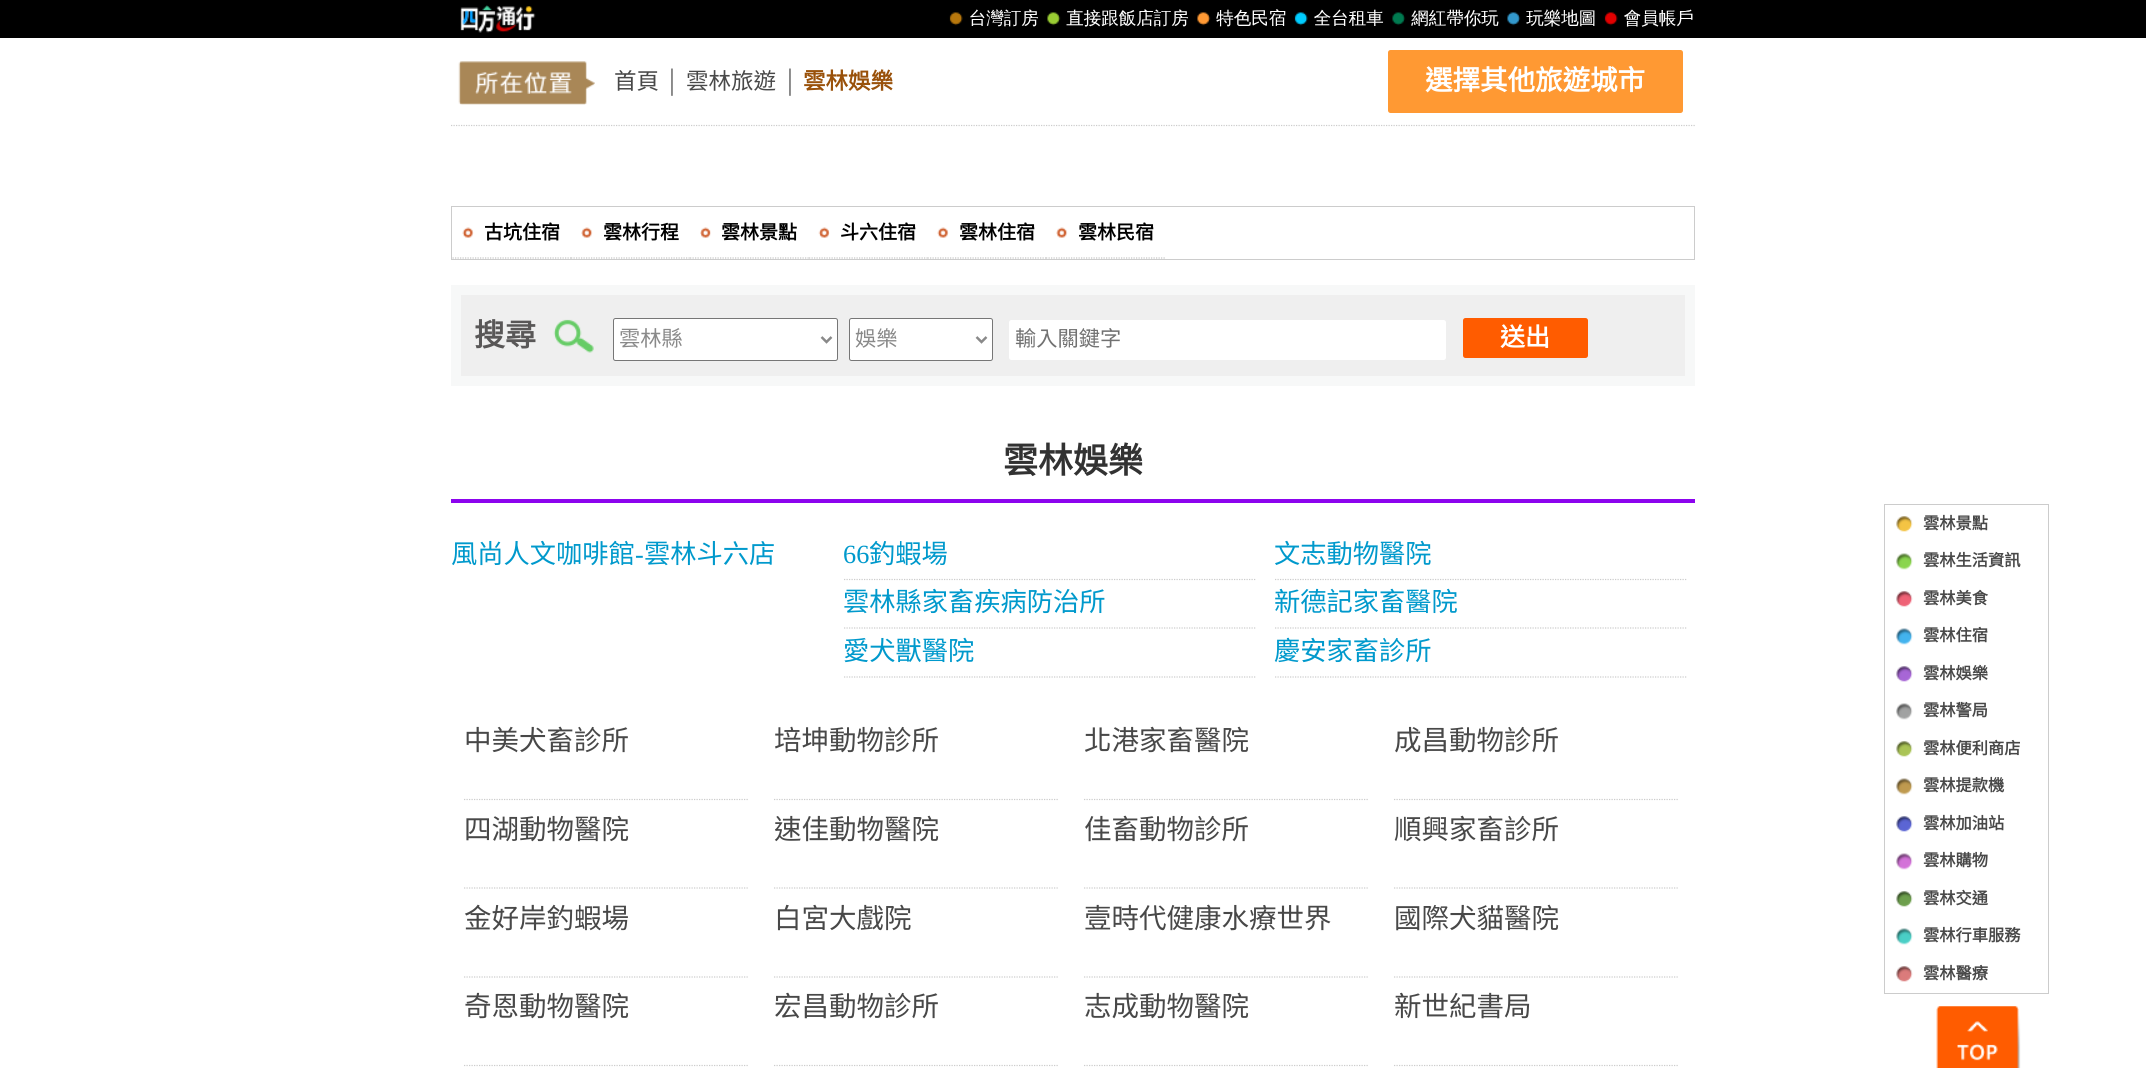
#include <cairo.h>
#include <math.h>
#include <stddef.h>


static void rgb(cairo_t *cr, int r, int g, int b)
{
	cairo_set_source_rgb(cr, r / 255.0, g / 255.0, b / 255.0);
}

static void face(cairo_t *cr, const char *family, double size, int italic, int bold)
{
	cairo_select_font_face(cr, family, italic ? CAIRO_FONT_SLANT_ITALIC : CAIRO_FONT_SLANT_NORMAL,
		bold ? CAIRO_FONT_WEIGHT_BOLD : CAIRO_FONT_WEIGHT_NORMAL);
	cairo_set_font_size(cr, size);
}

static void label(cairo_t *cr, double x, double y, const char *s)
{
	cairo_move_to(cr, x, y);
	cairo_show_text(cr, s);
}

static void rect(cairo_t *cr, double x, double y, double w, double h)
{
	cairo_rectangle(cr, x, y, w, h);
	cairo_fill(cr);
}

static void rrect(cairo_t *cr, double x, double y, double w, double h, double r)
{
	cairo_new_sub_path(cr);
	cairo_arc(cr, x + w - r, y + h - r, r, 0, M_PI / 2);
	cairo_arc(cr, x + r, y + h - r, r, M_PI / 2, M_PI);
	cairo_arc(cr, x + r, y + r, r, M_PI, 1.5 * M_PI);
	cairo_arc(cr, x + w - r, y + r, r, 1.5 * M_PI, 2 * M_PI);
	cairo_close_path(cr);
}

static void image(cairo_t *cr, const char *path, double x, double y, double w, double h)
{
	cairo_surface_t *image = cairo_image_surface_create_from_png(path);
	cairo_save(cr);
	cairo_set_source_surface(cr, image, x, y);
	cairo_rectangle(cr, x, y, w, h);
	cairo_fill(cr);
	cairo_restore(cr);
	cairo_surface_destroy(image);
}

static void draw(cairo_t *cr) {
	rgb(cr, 255, 255, 255);
	cairo_paint(cr);
	rgb(cr, 0, 0, 0);
	rect(cr, 0, 0, 2146, 38);
	image(cr, "image0.png", 460, 5, 1233, 28);
	image(cr, "image1.png", 458, 61, 137, 44);
	cairo_new_path(cr);
	cairo_move_to(cr, 451, 125.5);
	cairo_line_to(cr, 1695, 125.5);
	rgb(cr, 204, 204, 204);
	cairo_set_line_width(cr, 1.2);
	cairo_set_dash(cr, (double[]){1.25, 1.25}, 2, 0);
	cairo_stroke(cr);
	face(cr, "Noto Sans CJK TC", 22.5, 0, 0);
	rgb(cr, 72, 72, 72);
	label(cr, 614, 89, "首頁");
	face(cr, "Liberation Serif", 22.5, 0, 0);
	rgb(cr, 113, 113, 113);
	label(cr, 664, 89, "│");
	face(cr, "Noto Sans CJK TC", 22.5, 0, 0);
	rgb(cr, 72, 72, 72);
	label(cr, 686, 89, "雲林旅遊");
	face(cr, "Liberation Serif", 22.5, 0, 0);
	rgb(cr, 113, 113, 113);
	label(cr, 782, 89, "│");
	face(cr, "Noto Sans CJK TC", 22.5, 0, 1);
	rgb(cr, 153, 81, 10);
	label(cr, 803, 89, "雲林娛樂");
	rgb(cr, 255, 153, 51);
	rrect(cr, 1388, 50, 295, 63, 2.5);
	cairo_fill(cr);
	face(cr, "Noto Sans CJK TC", 27.5, 0, 1);
	rgb(cr, 255, 255, 255);
	label(cr, 1425, 90, "選擇其他旅遊城市");
	cairo_rectangle(cr, 451.5, 206.5, 1243, 53);
	rgb(cr, 204, 204, 204);
	cairo_set_line_width(cr, 1);
	cairo_set_dash(cr, NULL, 0, 0);
	cairo_stroke(cr);
	image(cr, "image2.png", 462, 227, 12, 11);
	cairo_new_path(cr);
	cairo_move_to(cr, 452.5, 258);
	cairo_line_to(cr, 571, 258);
	rgb(cr, 196, 196, 196);
	cairo_set_line_width(cr, 1.2);
	cairo_set_dash(cr, (double[]){1.25, 1.25}, 2, 0);
	cairo_stroke(cr);
	face(cr, "Noto Sans CJK TC", 19, 0, 1);
	rgb(cr, 0, 0, 0);
	label(cr, 484, 239, "古坑住宿");
	image(cr, "image3.png", 581, 227, 12, 11);
	cairo_new_path(cr);
	cairo_move_to(cr, 571, 258);
	cairo_line_to(cr, 690, 258);
	rgb(cr, 196, 196, 196);
	cairo_stroke(cr);
	rgb(cr, 0, 0, 0);
	label(cr, 603, 239, "雲林行程");
	image(cr, "image4.png", 700, 227, 11, 11);
	cairo_new_path(cr);
	cairo_move_to(cr, 690, 258);
	cairo_line_to(cr, 809, 258);
	rgb(cr, 196, 196, 196);
	cairo_stroke(cr);
	rgb(cr, 0, 0, 0);
	label(cr, 721, 239, "雲林景點");
	image(cr, "image5.png", 818, 227, 12, 11);
	cairo_new_path(cr);
	cairo_move_to(cr, 809, 258);
	cairo_line_to(cr, 927.5, 258);
	rgb(cr, 196, 196, 196);
	cairo_stroke(cr);
	rgb(cr, 0, 0, 0);
	label(cr, 840, 239, "斗六住宿");
	image(cr, "image6.png", 937, 227, 12, 11);
	cairo_new_path(cr);
	cairo_move_to(cr, 927.5, 258);
	cairo_line_to(cr, 1046, 258);
	rgb(cr, 196, 196, 196);
	cairo_stroke(cr);
	rgb(cr, 0, 0, 0);
	label(cr, 959, 239, "雲林住宿");
	image(cr, "image3.png", 1056, 227, 12, 11);
	cairo_new_path(cr);
	cairo_move_to(cr, 1046, 258);
	cairo_line_to(cr, 1165, 258);
	rgb(cr, 196, 196, 196);
	cairo_stroke(cr);
	rgb(cr, 0, 0, 0);
	label(cr, 1078, 239, "雲林民宿");
	rgb(cr, 239, 239, 239);
	cairo_rectangle(cr, 456, 290, 1234, 91);
	cairo_fill_preserve(cr);
	rgb(cr, 247, 248, 248);
	cairo_set_line_width(cr, 10);
	cairo_set_dash(cr, NULL, 0, 0);
	cairo_stroke(cr);
	face(cr, "Noto Sans CJK TC", 31, 0, 1);
	rgb(cr, 89, 87, 87);
	label(cr, 474, 346, "搜尋");
	image(cr, "image7.png", 553, 319, 41, 34);
	rgb(cr, 255, 255, 255);
	rrect(cr, 613.5, 318.5, 224, 42, 2);
	cairo_fill_preserve(cr);
	rgb(cr, 118, 118, 118);
	cairo_set_line_width(cr, 1);
	cairo_stroke(cr);
	cairo_new_path(cr);
	cairo_move_to(cr, 821.5, 337);
	cairo_line_to(cr, 826.5, 342);
	cairo_line_to(cr, 831.5, 337);
	rgb(cr, 137, 137, 137);
	cairo_set_line_width(cr, 2.5);
	cairo_stroke(cr);
	face(cr, "Noto Sans CJK TC", 21.25, 0, 0);
	label(cr, 619, 346, "雲林縣");
	rgb(cr, 255, 255, 255);
	rrect(cr, 849.5, 318.5, 143, 42, 2);
	cairo_fill_preserve(cr);
	rgb(cr, 118, 118, 118);
	cairo_set_line_width(cr, 1);
	cairo_stroke(cr);
	cairo_new_path(cr);
	cairo_move_to(cr, 976.5, 337);
	cairo_line_to(cr, 981.5, 342);
	cairo_line_to(cr, 986.5, 337);
	rgb(cr, 137, 137, 137);
	cairo_set_line_width(cr, 2.5);
	cairo_stroke(cr);
	label(cr, 855, 346, "娛樂");
	rgb(cr, 255, 255, 255);
	rrect(cr, 1009, 320, 437, 40, 2.5);
	cairo_fill(cr);
	rgb(cr, 113, 113, 113);
	label(cr, 1015, 346, "輸入關鍵字");
	rgb(cr, 255, 92, 0);
	rrect(cr, 1463, 318, 125, 40, 2.5);
	cairo_fill(cr);
	face(cr, "Noto Sans CJK TC", 25, 0, 1);
	rgb(cr, 255, 255, 255);
	label(cr, 1500, 346, "送出");
	rgb(cr, 140, 4, 238);
	rect(cr, 451, 499, 1244, 4);
	face(cr, "Noto Sans CJK TC", 35, 0, 1);
	rgb(cr, 50, 50, 50);
	label(cr, 1003, 473, "雲林娛樂");
	face(cr, "Noto Sans CJK TC", 26.25, 0, 0);
	rgb(cr, 0, 153, 204);
	label(cr, 451, 563, "風尚人文咖啡館");
	face(cr, "Liberation Serif", 26.25, 0, 0);
	label(cr, 635, 563, "-");
	face(cr, "Noto Sans CJK TC", 26.25, 0, 0);
	label(cr, 644, 563, "雲林斗六店");
	cairo_new_path(cr);
	cairo_move_to(cr, 844, 579.5);
	cairo_line_to(cr, 1256, 579.5);
	rgb(cr, 204, 204, 204);
	cairo_set_line_width(cr, 1.2);
	cairo_set_dash(cr, (double[]){1.25, 1.25}, 2, 0);
	cairo_stroke(cr);
	face(cr, "Liberation Serif", 26.25, 0, 0);
	rgb(cr, 0, 153, 204);
	label(cr, 843, 563, "66");
	face(cr, "Noto Sans CJK TC", 26.25, 0, 0);
	label(cr, 869, 563, "釣蝦場");
	cairo_new_path(cr);
	cairo_move_to(cr, 1275, 579.5);
	cairo_line_to(cr, 1687.5, 579.5);
	rgb(cr, 204, 204, 204);
	cairo_stroke(cr);
	rgb(cr, 0, 153, 204);
	label(cr, 1274, 563, "文志動物醫院");
	cairo_new_path(cr);
	cairo_move_to(cr, 844, 628);
	cairo_line_to(cr, 1256, 628);
	rgb(cr, 204, 204, 204);
	cairo_stroke(cr);
	rgb(cr, 0, 153, 204);
	label(cr, 843, 611, "雲林縣家畜疾病防治所");
	cairo_new_path(cr);
	cairo_move_to(cr, 1275, 628);
	cairo_line_to(cr, 1687.5, 628);
	rgb(cr, 204, 204, 204);
	cairo_stroke(cr);
	rgb(cr, 0, 153, 204);
	label(cr, 1274, 611, "新德記家畜醫院");
	cairo_new_path(cr);
	cairo_move_to(cr, 844, 677);
	cairo_line_to(cr, 1256, 677);
	rgb(cr, 204, 204, 204);
	cairo_stroke(cr);
	rgb(cr, 0, 153, 204);
	label(cr, 843, 660, "愛犬獸醫院");
	cairo_new_path(cr);
	cairo_move_to(cr, 1275, 677);
	cairo_line_to(cr, 1687.5, 677);
	rgb(cr, 204, 204, 204);
	cairo_stroke(cr);
	rgb(cr, 0, 153, 204);
	label(cr, 1274, 660, "慶安家畜診所");
	rgb(cr, 204, 204, 204);
	rect(cr, 1884, 504, 165, 1);
	rect(cr, 1884, 993, 165, 1);
	rect(cr, 2048, 505, 1, 488);
	rect(cr, 1884, 505, 1, 488);
	image(cr, "image8.png", 1896, 516, 17, 16);
	face(cr, "Noto Sans CJK TC", 16.25, 0, 1);
	rgb(cr, 72, 72, 72);
	label(cr, 1923, 529, "雲林景點");
	image(cr, "image9.png", 1896, 553, 17, 17);
	label(cr, 1923, 566, "雲林生活資訊");
	image(cr, "image10.png", 1896, 591, 17, 16);
	label(cr, 1923, 604, "雲林美食");
	image(cr, "image11.png", 1896, 628, 17, 17);
	label(cr, 1923, 641, "雲林住宿");
	image(cr, "image12.png", 1896, 666, 17, 16);
	label(cr, 1923, 679, "雲林娛樂");
	image(cr, "image13.png", 1896, 703, 17, 17);
	label(cr, 1923, 716, "雲林警局");
	image(cr, "image14.png", 1896, 741, 17, 16);
	label(cr, 1923, 754, "雲林便利商店");
	image(cr, "image15.png", 1896, 778, 17, 17);
	label(cr, 1923, 791, "雲林提款機");
	image(cr, "image16.png", 1896, 816, 17, 16);
	label(cr, 1923, 829, "雲林加油站");
	image(cr, "image17.png", 1896, 853, 17, 17);
	label(cr, 1923, 866, "雲林購物");
	image(cr, "image18.png", 1896, 891, 17, 16);
	label(cr, 1923, 904, "雲林交通");
	image(cr, "image19.png", 1896, 928, 17, 17);
	label(cr, 1923, 941, "雲林行車服務");
	image(cr, "image20.png", 1896, 966, 17, 16);
	label(cr, 1923, 979, "雲林醫療");
	cairo_new_path(cr);
	cairo_move_to(cr, 464, 799.5);
	cairo_line_to(cr, 749, 799.5);
	rgb(cr, 204, 204, 204);
	cairo_stroke(cr);
	face(cr, "Noto Sans CJK TC", 27.5, 0, 0);
	rgb(cr, 72, 72, 72);
	label(cr, 464, 750, "中美犬畜診所");
	cairo_new_path(cr);
	cairo_move_to(cr, 774, 799.5);
	cairo_line_to(cr, 1059, 799.5);
	rgb(cr, 204, 204, 204);
	cairo_stroke(cr);
	rgb(cr, 72, 72, 72);
	label(cr, 774, 750, "培坤動物診所");
	cairo_new_path(cr);
	cairo_move_to(cr, 1084, 799.5);
	cairo_line_to(cr, 1369, 799.5);
	rgb(cr, 204, 204, 204);
	cairo_stroke(cr);
	rgb(cr, 72, 72, 72);
	label(cr, 1084, 750, "北港家畜醫院");
	cairo_new_path(cr);
	cairo_move_to(cr, 1394, 799.5);
	cairo_line_to(cr, 1679, 799.5);
	rgb(cr, 204, 204, 204);
	cairo_stroke(cr);
	rgb(cr, 72, 72, 72);
	label(cr, 1394, 750, "成昌動物診所");
	cairo_new_path(cr);
	cairo_move_to(cr, 464, 888);
	cairo_line_to(cr, 749, 888);
	rgb(cr, 204, 204, 204);
	cairo_stroke(cr);
	rgb(cr, 72, 72, 72);
	label(cr, 464, 839, "四湖動物醫院");
	cairo_new_path(cr);
	cairo_move_to(cr, 774, 888);
	cairo_line_to(cr, 1059, 888);
	rgb(cr, 204, 204, 204);
	cairo_stroke(cr);
	rgb(cr, 72, 72, 72);
	label(cr, 774, 839, "速佳動物醫院");
	cairo_new_path(cr);
	cairo_move_to(cr, 1084, 888);
	cairo_line_to(cr, 1369, 888);
	rgb(cr, 204, 204, 204);
	cairo_stroke(cr);
	rgb(cr, 72, 72, 72);
	label(cr, 1084, 839, "佳畜動物診所");
	cairo_new_path(cr);
	cairo_move_to(cr, 1394, 888);
	cairo_line_to(cr, 1679, 888);
	rgb(cr, 204, 204, 204);
	cairo_stroke(cr);
	rgb(cr, 72, 72, 72);
	label(cr, 1394, 839, "順興家畜診所");
	cairo_new_path(cr);
	cairo_move_to(cr, 464, 977);
	cairo_line_to(cr, 749, 977);
	rgb(cr, 204, 204, 204);
	cairo_stroke(cr);
	rgb(cr, 72, 72, 72);
	label(cr, 464, 928, "金好岸釣蝦場");
	cairo_new_path(cr);
	cairo_move_to(cr, 774, 977);
	cairo_line_to(cr, 1059, 977);
	rgb(cr, 204, 204, 204);
	cairo_stroke(cr);
	rgb(cr, 72, 72, 72);
	label(cr, 774, 928, "白宮大戲院");
	cairo_new_path(cr);
	cairo_move_to(cr, 1084, 977);
	cairo_line_to(cr, 1369, 977);
	rgb(cr, 204, 204, 204);
	cairo_stroke(cr);
	rgb(cr, 72, 72, 72);
	label(cr, 1084, 928, "壹時代健康水療世界");
	cairo_new_path(cr);
	cairo_move_to(cr, 1394, 977);
	cairo_line_to(cr, 1679, 977);
	rgb(cr, 204, 204, 204);
	cairo_stroke(cr);
	rgb(cr, 72, 72, 72);
	label(cr, 1394, 928, "國際犬貓醫院");
	cairo_new_path(cr);
	cairo_move_to(cr, 464, 1065.5);
	cairo_line_to(cr, 749, 1065.5);
	rgb(cr, 204, 204, 204);
	cairo_stroke(cr);
	rgb(cr, 72, 72, 72);
	label(cr, 464, 1016, "奇恩動物醫院");
	cairo_new_path(cr);
	cairo_move_to(cr, 774, 1065.5);
	cairo_line_to(cr, 1059, 1065.5);
	rgb(cr, 204, 204, 204);
	cairo_stroke(cr);
	rgb(cr, 72, 72, 72);
	label(cr, 774, 1016, "宏昌動物診所");
	cairo_new_path(cr);
	cairo_move_to(cr, 1084, 1065.5);
	cairo_line_to(cr, 1369, 1065.5);
	rgb(cr, 204, 204, 204);
	cairo_stroke(cr);
	rgb(cr, 72, 72, 72);
	label(cr, 1084, 1016, "志成動物醫院");
	cairo_new_path(cr);
	cairo_move_to(cr, 1394, 1065.5);
	cairo_line_to(cr, 1679, 1065.5);
	rgb(cr, 204, 204, 204);
	cairo_stroke(cr);
	rgb(cr, 72, 72, 72);
	label(cr, 1394, 1016, "新世紀書局");
	image(cr, "image21.png", 1936, 1006, 85, 62);
}

int main(void) {
	cairo_surface_t *surface = cairo_image_surface_create(CAIRO_FORMAT_RGB24, 2146, 1068);
	cairo_t *cr = cairo_create(surface);
	cairo_font_options_t *options = cairo_font_options_create();
	cairo_font_options_set_hint_metrics(options, CAIRO_HINT_METRICS_OFF);
	cairo_font_options_set_hint_style(options, CAIRO_HINT_STYLE_NONE);
	cairo_set_font_options(cr, options);
	cairo_set_miter_limit(cr, 4);
	draw(cr);
	cairo_surface_write_to_png(surface, "render.png");
	cairo_font_options_destroy(options);
	cairo_destroy(cr);
	cairo_surface_destroy(surface);
	return 0;
}
